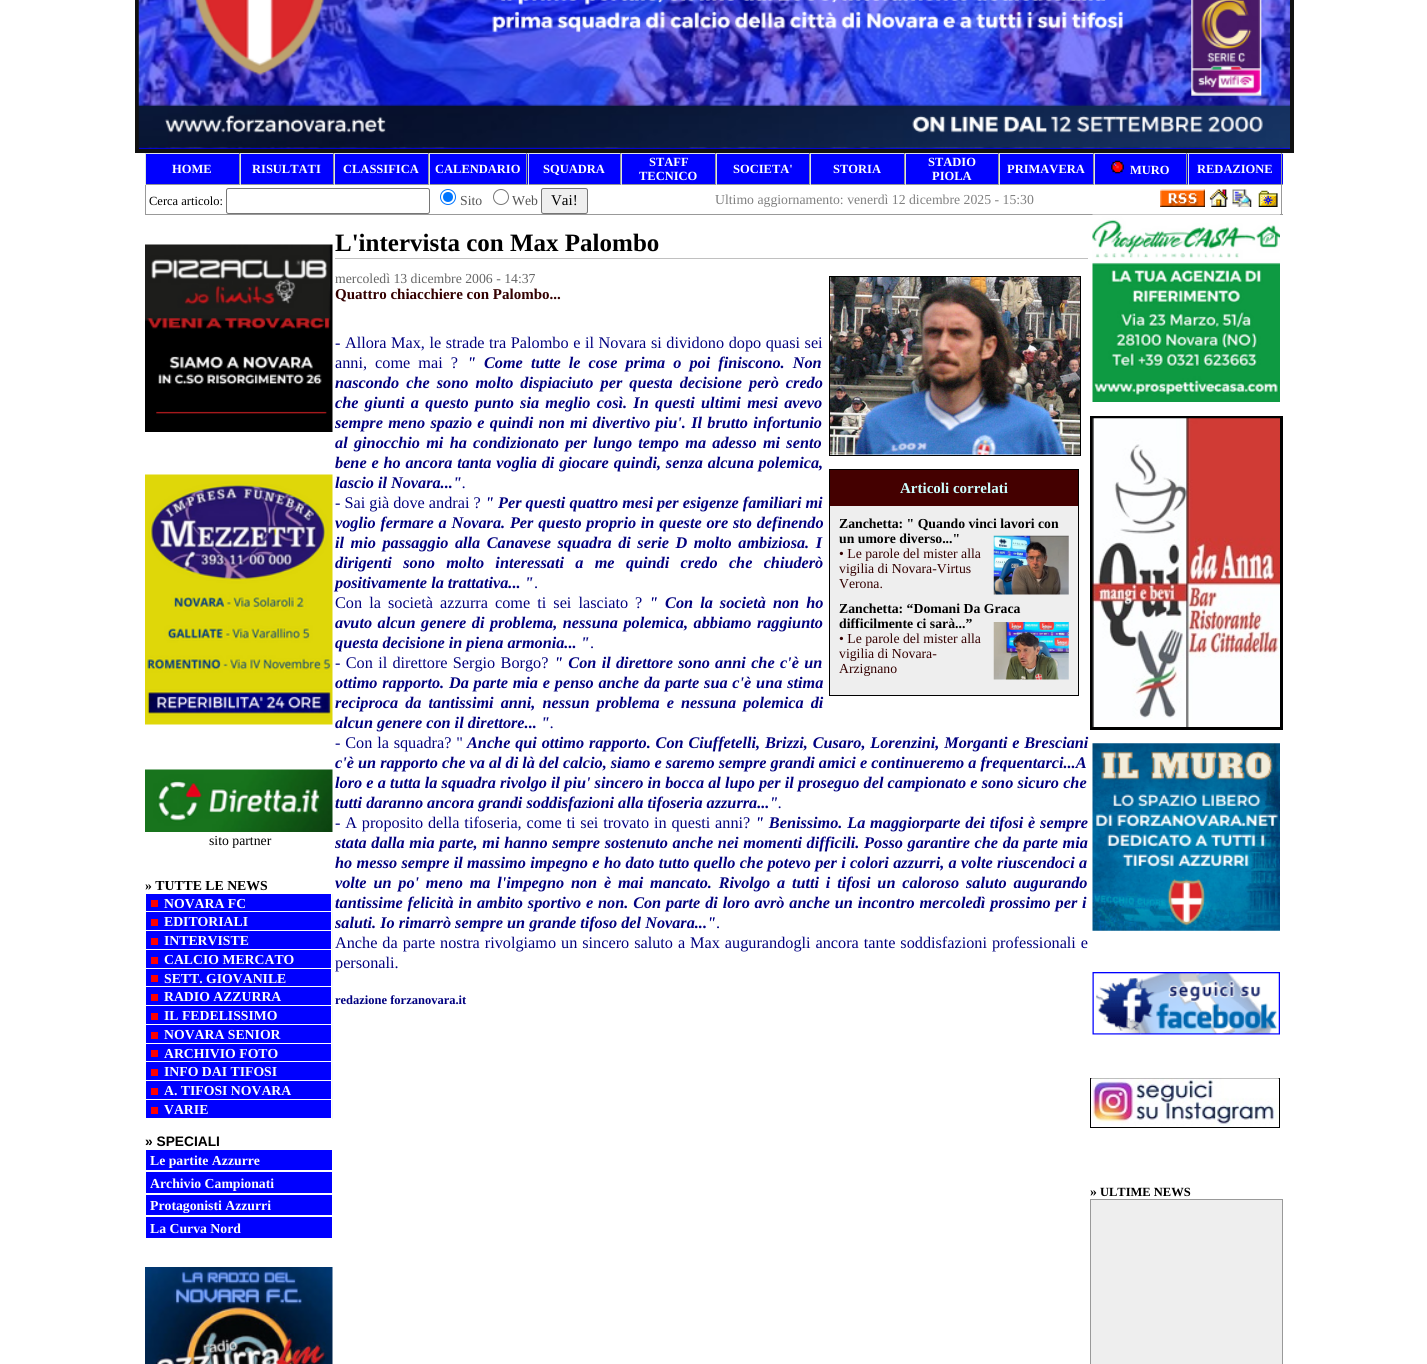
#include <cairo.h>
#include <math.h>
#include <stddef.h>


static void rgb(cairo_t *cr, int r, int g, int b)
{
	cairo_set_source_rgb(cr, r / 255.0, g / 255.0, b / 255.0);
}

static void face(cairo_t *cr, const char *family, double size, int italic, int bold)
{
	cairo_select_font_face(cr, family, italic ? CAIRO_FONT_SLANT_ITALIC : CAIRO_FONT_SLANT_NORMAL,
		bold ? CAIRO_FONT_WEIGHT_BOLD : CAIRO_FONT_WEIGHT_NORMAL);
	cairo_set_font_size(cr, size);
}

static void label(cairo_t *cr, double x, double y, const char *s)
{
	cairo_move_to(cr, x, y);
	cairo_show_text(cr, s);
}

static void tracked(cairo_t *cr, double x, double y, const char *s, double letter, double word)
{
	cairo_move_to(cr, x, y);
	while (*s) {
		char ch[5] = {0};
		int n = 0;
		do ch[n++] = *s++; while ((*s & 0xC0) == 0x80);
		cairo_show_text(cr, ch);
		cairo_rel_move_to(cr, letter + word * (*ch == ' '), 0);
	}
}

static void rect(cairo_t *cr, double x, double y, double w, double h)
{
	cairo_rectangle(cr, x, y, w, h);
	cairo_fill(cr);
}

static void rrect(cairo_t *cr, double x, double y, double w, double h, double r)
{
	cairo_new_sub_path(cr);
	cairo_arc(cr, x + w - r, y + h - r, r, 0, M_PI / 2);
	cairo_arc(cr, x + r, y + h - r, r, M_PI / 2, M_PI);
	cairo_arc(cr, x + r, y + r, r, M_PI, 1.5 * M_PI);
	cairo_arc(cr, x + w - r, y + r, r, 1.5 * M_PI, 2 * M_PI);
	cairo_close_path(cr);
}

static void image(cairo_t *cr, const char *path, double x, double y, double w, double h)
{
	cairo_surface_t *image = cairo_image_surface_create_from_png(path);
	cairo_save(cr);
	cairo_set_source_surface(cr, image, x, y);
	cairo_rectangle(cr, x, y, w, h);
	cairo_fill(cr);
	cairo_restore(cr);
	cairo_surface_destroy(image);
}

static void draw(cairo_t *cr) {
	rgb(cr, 255, 255, 255);
	cairo_paint(cr);
	rgb(cr, 17, 17, 17);
	rect(cr, 1290, 0, 4, 153);
	rect(cr, 135, 149, 1159, 4);
	rect(cr, 135, 0, 4, 153);
	rgb(cr, 0, 0, 255);
	rect(cr, 139, 148, 1151, 1);
	image(cr, "image0.png", 138, 0, 1152, 149);
	rect(cr, 146, 154, 93, 30);
	rgb(cr, 222, 227, 231);
	rect(cr, 145, 153, 1138, 1);
	rgb(cr, 148, 151, 154);
	rect(cr, 239, 153, 1, 32);
	rect(cr, 145, 184, 95, 1);
	rgb(cr, 222, 227, 231);
	rect(cr, 145, 153, 1, 32);
	face(cr, "Liberation Serif", 12.5, 0, 1);
	rgb(cr, 255, 255, 255);
	label(cr, 172, 173, "HOME");
	rgb(cr, 0, 0, 255);
	rect(cr, 241, 154, 92, 30);
	rgb(cr, 148, 151, 154);
	rect(cr, 333, 153, 1, 32);
	rect(cr, 240, 184, 94, 1);
	rgb(cr, 222, 227, 231);
	rect(cr, 240, 153, 1, 32);
	rgb(cr, 255, 255, 255);
	label(cr, 252, 173, "RISULTATI");
	rgb(cr, 0, 0, 255);
	rect(cr, 335, 154, 93, 30);
	rgb(cr, 148, 151, 154);
	rect(cr, 428, 153, 1, 32);
	rect(cr, 334, 184, 95, 1);
	rgb(cr, 222, 227, 231);
	rect(cr, 334, 153, 1, 32);
	rgb(cr, 255, 255, 255);
	label(cr, 343, 173, "CLASSIFICA");
	rgb(cr, 0, 0, 255);
	rect(cr, 430, 154, 98, 30);
	rgb(cr, 148, 151, 154);
	rect(cr, 526, 153, 1, 32);
	rect(cr, 429, 184, 99, 1);
	rgb(cr, 222, 227, 231);
	rect(cr, 429, 153, 1, 32);
	rgb(cr, 255, 255, 255);
	label(cr, 435, 173, "CALENDARIO");
	rgb(cr, 0, 0, 255);
	rect(cr, 529, 154, 91, 30);
	rgb(cr, 148, 151, 154);
	rect(cr, 620, 153, 1, 32);
	rect(cr, 528, 184, 93, 1);
	rgb(cr, 222, 227, 231);
	rect(cr, 528, 153, 1, 32);
	rgb(cr, 255, 255, 255);
	label(cr, 543, 173, "SQUADRA");
	rgb(cr, 0, 0, 255);
	rect(cr, 622, 154, 93, 30);
	rgb(cr, 148, 151, 154);
	rect(cr, 715, 153, 1, 32);
	rect(cr, 621, 184, 95, 1);
	rgb(cr, 222, 227, 231);
	rect(cr, 621, 153, 1, 32);
	rgb(cr, 255, 255, 255);
	label(cr, 649, 166, "STAFF");
	label(cr, 639, 180, "TECNICO");
	rgb(cr, 0, 0, 255);
	rect(cr, 717, 154, 92, 30);
	rgb(cr, 148, 151, 154);
	rect(cr, 809, 153, 1, 32);
	rect(cr, 716, 184, 94, 1);
	rgb(cr, 222, 227, 231);
	rect(cr, 716, 153, 1, 32);
	rgb(cr, 255, 255, 255);
	label(cr, 733, 173, "SOCIETA'");
	rgb(cr, 0, 0, 255);
	rect(cr, 811, 154, 93, 30);
	rgb(cr, 148, 151, 154);
	rect(cr, 904, 153, 1, 32);
	rect(cr, 810, 184, 95, 1);
	rgb(cr, 222, 227, 231);
	rect(cr, 810, 153, 1, 32);
	rgb(cr, 255, 255, 255);
	label(cr, 833, 173, "STORIA");
	rgb(cr, 0, 0, 255);
	rect(cr, 906, 154, 92, 30);
	rgb(cr, 148, 151, 154);
	rect(cr, 998, 153, 1, 32);
	rect(cr, 905, 184, 94, 1);
	rgb(cr, 222, 227, 231);
	rect(cr, 905, 153, 1, 32);
	rgb(cr, 255, 255, 255);
	label(cr, 928, 166, "STADIO");
	label(cr, 932, 180, "PIOLA");
	rgb(cr, 0, 0, 255);
	rect(cr, 1000, 154, 93, 30);
	rgb(cr, 148, 151, 154);
	rect(cr, 1093, 153, 1, 32);
	rect(cr, 999, 184, 95, 1);
	rgb(cr, 222, 227, 231);
	rect(cr, 999, 153, 1, 32);
	rgb(cr, 255, 255, 255);
	label(cr, 1007, 173, "PRIMAVERA");
	rgb(cr, 0, 0, 255);
	rect(cr, 1095, 154, 93, 30);
	rgb(cr, 148, 151, 154);
	rect(cr, 1186, 153, 1, 32);
	rect(cr, 1094, 184, 94, 1);
	rgb(cr, 222, 227, 231);
	rect(cr, 1094, 153, 1, 32);
	image(cr, "image1.png", 1111, 160, 13, 14);
	rgb(cr, 255, 255, 255);
	label(cr, 1130, 174, "MURO");
	rgb(cr, 0, 0, 255);
	rect(cr, 1189, 154, 94, 30);
	rgb(cr, 148, 151, 154);
	rect(cr, 1281, 153, 1, 32);
	rect(cr, 1188, 184, 95, 1);
	rgb(cr, 222, 227, 231);
	rect(cr, 1188, 153, 1, 32);
	rgb(cr, 255, 255, 255);
	label(cr, 1197, 173, "REDAZIONE");
	rgb(cr, 153, 153, 153);
	rect(cr, 1281, 185, 1, 30);
	rect(cr, 145, 214, 1138, 1);
	rect(cr, 145, 185, 1, 30);
	face(cr, "Liberation Serif", 12.5, 0, 0);
	rgb(cr, 0, 0, 0);
	label(cr, 149, 205, "Cerca articolo:");
	rrect(cr, 226.5, 188.5, 203, 25, 2);
	rgb(cr, 118, 118, 118);
	cairo_set_line_width(cr, 1);
	cairo_stroke(cr);
	cairo_arc(cr, 448, 197, 7.5, 0, 2 * M_PI);
	rgb(cr, 0, 117, 255);
	cairo_stroke(cr);
	cairo_arc(cr, 448, 197, 5, 0, 2 * M_PI);
	cairo_fill(cr);
	face(cr, "Liberation Serif", 13.75, 0, 0);
	rgb(cr, 85, 85, 85);
	label(cr, 460, 205, "Sito");
	cairo_new_path(cr);
	cairo_arc(cr, 501, 197, 7.5, 0, 2 * M_PI);
	rgb(cr, 118, 118, 118);
	cairo_stroke(cr);
	rgb(cr, 85, 85, 85);
	label(cr, 512, 205, "Web");
	rgb(cr, 239, 239, 239);
	rrect(cr, 541.5, 188.5, 46, 25, 2);
	cairo_fill_preserve(cr);
	rgb(cr, 118, 118, 118);
	cairo_stroke(cr);
	face(cr, "Liberation Serif", 15, 0, 0);
	rgb(cr, 0, 0, 0);
	label(cr, 551, 205, "Vai!");
	face(cr, "Liberation Serif", 13.75, 0, 0);
	rgb(cr, 128, 128, 128);
	label(cr, 715, 204, "Ultimo aggiornamento: venerdì 12 dicembre 2025 - 15:30");
	image(cr, "image2.png", 1160, 189, 45, 18);
	image(cr, "image3.png", 1209, 189, 19, 18);
	image(cr, "image4.png", 1232, 189, 20, 18);
	image(cr, "image5.png", 1258, 190, 20, 17);
	image(cr, "image6.png", 145, 244, 188, 188);
	image(cr, "image7.png", 145, 474, 188, 251);
	image(cr, "image8.png", 145, 769, 188, 63);
	rgb(cr, 0, 0, 0);
	label(cr, 209, 845, "sito partner");
	face(cr, "Liberation Serif", 13.75, 0, 1);
	label(cr, 145, 890, "» TUTTE LE NEWS");
	rgb(cr, 246, 246, 246);
	rect(cr, 332, 894, 1, 225);
	rgb(cr, 0, 0, 255);
	rect(cr, 146, 894, 185, 36);
	rgb(cr, 255, 255, 255);
	rect(cr, 146, 911, 185, 1);
	rgb(cr, 255, 0, 0);
	rect(cr, 151, 900, 7, 7);
	rgb(cr, 255, 255, 255);
	label(cr, 164, 908, "NOVARA FC");
	rgb(cr, 255, 0, 0);
	rect(cr, 151, 919, 7, 7);
	rgb(cr, 255, 255, 255);
	label(cr, 164, 926, "EDITORIALI");
	rgb(cr, 0, 0, 255);
	rect(cr, 146, 931, 185, 18);
	rgb(cr, 255, 0, 0);
	rect(cr, 151, 938, 7, 7);
	rgb(cr, 255, 255, 255);
	label(cr, 164, 945, "INTERVISTE");
	rgb(cr, 0, 0, 255);
	rect(cr, 146, 950, 185, 18);
	rgb(cr, 255, 0, 0);
	rect(cr, 151, 957, 7, 7);
	rgb(cr, 255, 255, 255);
	label(cr, 164, 964, "CALCIO MERCATO");
	rgb(cr, 0, 0, 255);
	rect(cr, 146, 969, 185, 36);
	rgb(cr, 255, 255, 255);
	rect(cr, 146, 986, 185, 1);
	rgb(cr, 255, 0, 0);
	rect(cr, 151, 975, 7, 7);
	rgb(cr, 255, 255, 255);
	label(cr, 164, 983, "SETT. GIOVANILE");
	rgb(cr, 255, 0, 0);
	rect(cr, 151, 994, 7, 7);
	rgb(cr, 255, 255, 255);
	label(cr, 164, 1001, "RADIO AZZURRA");
	rgb(cr, 0, 0, 255);
	rect(cr, 146, 1006, 185, 18);
	rgb(cr, 255, 0, 0);
	rect(cr, 151, 1013, 7, 7);
	rgb(cr, 255, 255, 255);
	label(cr, 164, 1020, "IL FEDELISSIMO");
	rgb(cr, 0, 0, 255);
	rect(cr, 146, 1025, 185, 18);
	rgb(cr, 255, 0, 0);
	rect(cr, 151, 1032, 7, 7);
	rgb(cr, 255, 255, 255);
	label(cr, 164, 1039, "NOVARA SENIOR");
	rgb(cr, 0, 0, 255);
	rect(cr, 146, 1044, 185, 36);
	rgb(cr, 255, 255, 255);
	rect(cr, 146, 1061, 185, 1);
	rgb(cr, 255, 0, 0);
	rect(cr, 151, 1050, 7, 7);
	rgb(cr, 255, 255, 255);
	label(cr, 164, 1058, "ARCHIVIO FOTO");
	rgb(cr, 255, 0, 0);
	rect(cr, 151, 1069, 7, 7);
	rgb(cr, 255, 255, 255);
	label(cr, 164, 1076, "INFO DAI TIFOSI");
	rgb(cr, 0, 0, 255);
	rect(cr, 146, 1081, 185, 18);
	rgb(cr, 255, 0, 0);
	rect(cr, 151, 1088, 7, 7);
	rgb(cr, 255, 255, 255);
	label(cr, 164, 1095, "A. TIFOSI NOVARA");
	rgb(cr, 0, 0, 255);
	rect(cr, 146, 1100, 185, 18);
	rgb(cr, 255, 0, 0);
	rect(cr, 151, 1107, 7, 7);
	rgb(cr, 255, 255, 255);
	label(cr, 164, 1114, "VARIE");
	face(cr, "Liberation Sans", 13.75, 0, 1);
	rgb(cr, 0, 0, 0);
	label(cr, 145, 1146, "» SPECIALI");
	rgb(cr, 0, 0, 255);
	rect(cr, 146, 1150, 186, 20);
	face(cr, "Liberation Serif", 13.75, 0, 1);
	rgb(cr, 255, 255, 255);
	label(cr, 150, 1165, "Le partite Azzurre");
	rgb(cr, 0, 0, 255);
	rect(cr, 146, 1172, 186, 21);
	rgb(cr, 255, 255, 255);
	label(cr, 150, 1188, "Archivio Campionati");
	rgb(cr, 0, 0, 255);
	rect(cr, 146, 1195, 186, 20);
	rgb(cr, 255, 255, 255);
	label(cr, 150, 1210, "Protagonisti Azzurri");
	rgb(cr, 0, 0, 255);
	rect(cr, 146, 1217, 186, 21);
	rgb(cr, 255, 255, 255);
	label(cr, 150, 1233, "La Curva Nord");
	image(cr, "image9.png", 145, 1267, 188, 97);
	face(cr, "Liberation Serif", 25, 0, 1);
	rgb(cr, 0, 0, 0);
	label(cr, 335, 251, "L'intervista con Max Palombo");
	rgb(cr, 192, 192, 192);
	rect(cr, 335, 258, 753, 1);
	face(cr, "Liberation Serif", 13.75, 0, 0);
	rgb(cr, 102, 102, 102);
	label(cr, 335, 283, "mercoledì 13 dicembre 2006 - 14:37");
	face(cr, "Liberation Serif", 15, 0, 1);
	rgb(cr, 51, 0, 0);
	label(cr, 335, 299, "Quattro chiacchiere con Palombo...");
	face(cr, "Liberation Serif", 16.25, 0, 0);
	rgb(cr, 0, 0, 128);
	tracked(cr, 335, 348, "- Allora Max, le strade tra Palombo e il Novara si dividono dopo quasi sei", 0, 0.5);
	tracked(cr, 335, 368, "anni, come mai ?", 0, 4);
	face(cr, "Liberation Serif", 16.25, 1, 1);
	label(cr, 467, 368, "\"");
	tracked(cr, 484, 368, "Come tutte le cose prima o poi finiscono. Non", 0, 4);
	tracked(cr, 335, 388, "nascondo che sono molto dispiaciuto per questa decisione però credo", 0, 3);
	tracked(cr, 335, 408, "che giunti a questo punto sia meglio così. In questi ultimi mesi avevo", 0, 2.25);
	tracked(cr, 335, 428, "sempre meno spazio e quindi non mi divertivo piu'. Il brutto infortunio", 0, 1.25);
	tracked(cr, 335, 448, "al ginocchio mi ha condizionato per lungo tempo ma adesso mi sento", 0, 2.25);
	tracked(cr, 335, 468, "bene e ho ancora tanta voglia di giocare quindi, senza alcuna polemica,", 0, 0.75);
	label(cr, 335, 488, "lascio il Novara...\"");
	face(cr, "Liberation Serif", 16.25, 1, 0);
	label(cr, 462, 488, ".");
	face(cr, "Liberation Serif", 16.25, 0, 0);
	label(cr, 335, 508, "- Sai già dove andrai ?");
	face(cr, "Liberation Serif", 16.25, 1, 1);
	label(cr, 485, 508, "\" Per questi quattro mesi per esigenze familiari mi");
	tracked(cr, 335, 528, "voglio fermare a Novara. Per questo proprio in queste ore sto definendo", 0, 0.75);
	tracked(cr, 335, 548, "il mio passaggio alla Canavese squadra di serie D molto ambiziosa. I", 0, 2.5);
	tracked(cr, 335, 568, "dirigenti sono molto interessati a me quindi credo che chiuderò", 0, 7.25);
	label(cr, 335, 588, "positivamente la trattativa... \"");
	face(cr, "Liberation Serif", 16.25, 0, 0);
	label(cr, 534, 588, ".");
	tracked(cr, 335, 608, "Con la società azzurra come ti sei lasciato ?", 0, 3);
	face(cr, "Liberation Serif", 16.25, 1, 1);
	tracked(cr, 649, 608, "\" Con la società non ho", 0, 3);
	tracked(cr, 335, 628, "avuto alcun genere di problema, nessuna polemica, abbiamo raggiunto", 0, 1.5);
	label(cr, 335, 648, "questa decisione in piena armonia... \"");
	face(cr, "Liberation Serif", 16.25, 0, 0);
	label(cr, 590, 648, ".");
	tracked(cr, 335, 668, "- Con il direttore Sergio Borgo?", 0, 1.25);
	face(cr, "Liberation Serif", 16.25, 1, 1);
	tracked(cr, 554, 668, "\" Con il direttore sono anni che c'è un", 0, 1.25);
	tracked(cr, 335, 688, "ottimo rapporto. Da parte mia e penso anche da parte sua c'è una stima", 0, 0.75);
	tracked(cr, 335, 708, "reciproca da tantissimi anni, nessun problema e nessuna polemica di", 0, 3);
	label(cr, 335, 728, "alcun genere con il direttore... \"");
	face(cr, "Liberation Serif", 16.25, 1, 0);
	label(cr, 550, 728, ".");
	face(cr, "Liberation Serif", 16.25, 0, 0);
	tracked(cr, 335, 748, "- Con la squadra? \"", 0, 0.75);
	face(cr, "Liberation Serif", 16.25, 1, 1);
	tracked(cr, 467, 748, "Anche qui ottimo rapporto. Con Ciuffetelli, Brizzi, Cusaro, Lorenzini, Morganti e Bresciani", 0, 0.75);
	label(cr, 335, 768, "c'è un rapporto che va al di là del calcio, siamo e saremo sempre grandi amici e continueremo a frequentarci...A");
	tracked(cr, 335, 788, "loro e a tutta la squadra rivolgo il piu' sincero in bocca al lupo per il proseguo del campionato e sono sicuro che", 0, 0.1);
	label(cr, 335, 808, "tutti daranno ancora grandi soddisfazioni alla tifoseria azzurra...\"");
	face(cr, "Liberation Serif", 16.25, 1, 0);
	label(cr, 778, 808, ".");
	face(cr, "Liberation Serif", 16.25, 0, 0);
	tracked(cr, 335, 828, "- A proposito della tifoseria, come ti sei trovato in questi anni?", 0, 0.75);
	face(cr, "Liberation Serif", 16.25, 1, 1);
	tracked(cr, 755, 828, "\" Benissimo. La maggiorparte dei tifosi è sempre", 0, 0.75);
	tracked(cr, 335, 848, "stata dalla mia parte, mi hanno sempre sostenuto anche nei momenti difficili. Posso garantire che da parte mia", 0, 0.6);
	tracked(cr, 335, 868, "ho messo sempre il massimo impegno e ho dato tutto quello che potevo per i colori azzurri, a volte riuscendoci a", 0, 0.3);
	tracked(cr, 335, 888, "volte un po' meno ma l'impegno non è mai mancato. Rivolgo a tutti i tifosi un caloroso saluto augurando", 0, 2.75);
	tracked(cr, 335, 908, "tantissime felicità in ambito sportivo e non. Con parte di loro avrò anche un incontro mercoledì prossimo per i", 0, 0.8);
	label(cr, 335, 928, "saluti. Io rimarrò sempre un grande tifoso del Novara...\"");
	face(cr, "Liberation Serif", 16.25, 0, 0);
	label(cr, 716, 928, ".");
	tracked(cr, 335, 948, "Anche da parte nostra rivolgiamo un sincero saluto a Max augurandogli ancora tante soddisfazioni professionali e", 0, 0.9);
	label(cr, 335, 968, "personali.");
	face(cr, "Liberation Serif", 12.5, 0, 1);
	label(cr, 335, 1004, "redazione forzanovara.it");
	cairo_rectangle(cr, 829.5, 276.5, 251, 179);
	rgb(cr, 0, 0, 0);
	cairo_stroke(cr);
	image(cr, "image10.png", 830, 277, 250, 178);
	rgb(cr, 238, 238, 238);
	rect(cr, 830, 506, 248, 189);
	cairo_rectangle(cr, 829.5, 469.5, 249, 226);
	rgb(cr, 0, 0, 0);
	cairo_stroke(cr);
	rgb(cr, 68, 0, 0);
	rect(cr, 830, 470, 248, 36);
	face(cr, "Liberation Serif", 15, 0, 1);
	rgb(cr, 204, 255, 255);
	label(cr, 900, 493, "Articoli correlati");
	face(cr, "Liberation Serif", 13.75, 0, 1);
	rgb(cr, 0, 0, 0);
	label(cr, 839, 528, "Zanchetta: \" Quando vinci lavori con");
	label(cr, 839, 543, "un umore diverso...\"");
	image(cr, "image11.png", 993, 535, 76, 60);
	face(cr, "Liberation Serif", 13.75, 0, 0);
	rgb(cr, 51, 0, 0);
	label(cr, 839, 558, "• Le parole del mister alla");
	label(cr, 839, 573, "vigilia di Novara-Virtus");
	label(cr, 839, 588, "Verona.");
	face(cr, "Liberation Serif", 13.75, 0, 1);
	rgb(cr, 0, 0, 0);
	label(cr, 839, 613, "Zanchetta: “Domani Da Graca");
	label(cr, 839, 628, "difficilmente ci sarà...”");
	image(cr, "image12.png", 993, 622, 76, 58);
	face(cr, "Liberation Serif", 13.75, 0, 0);
	rgb(cr, 51, 0, 0);
	label(cr, 839, 643, "• Le parole del mister alla");
	label(cr, 839, 658, "vigilia di Novara-");
	label(cr, 839, 673, "Arzignano");
	image(cr, "image13.png", 1092, 214, 188, 188);
	cairo_rectangle(cr, 1091.5, 417.5, 190, 311);
	rgb(cr, 0, 0, 0);
	cairo_set_line_width(cr, 3);
	cairo_stroke(cr);
	image(cr, "image14.png", 1092, 418, 188, 309);
	image(cr, "image15.png", 1092, 743, 188, 188);
	image(cr, "image16.png", 1092, 972, 188, 63);
	cairo_rectangle(cr, 1090.5, 1078.5, 189, 49);
	cairo_set_line_width(cr, 1);
	cairo_stroke(cr);
	image(cr, "image17.png", 1091, 1078, 188, 48);
	face(cr, "Liberation Serif", 13.75, 0, 1);
	label(cr, 1090, 1196, "»");
	face(cr, "Liberation Serif", 12.5, 0, 1);
	label(cr, 1100, 1196, "ULTIME NEWS");
	rgb(cr, 238, 238, 238);
	cairo_rectangle(cr, 1090.5, 1199.5, 192, 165);
	cairo_fill_preserve(cr);
	rgb(cr, 153, 153, 153);
	cairo_stroke(cr);
}

int main(void) {
	cairo_surface_t *surface = cairo_image_surface_create(CAIRO_FORMAT_RGB24, 1427, 1364);
	cairo_t *cr = cairo_create(surface);
	cairo_font_options_t *options = cairo_font_options_create();
	cairo_font_options_set_hint_metrics(options, CAIRO_HINT_METRICS_OFF);
	cairo_font_options_set_hint_style(options, CAIRO_HINT_STYLE_NONE);
	cairo_set_font_options(cr, options);
	cairo_set_miter_limit(cr, 4);
	draw(cr);
	cairo_surface_write_to_png(surface, "render.png");
	cairo_font_options_destroy(options);
	cairo_destroy(cr);
	cairo_surface_destroy(surface);
	return 0;
}
